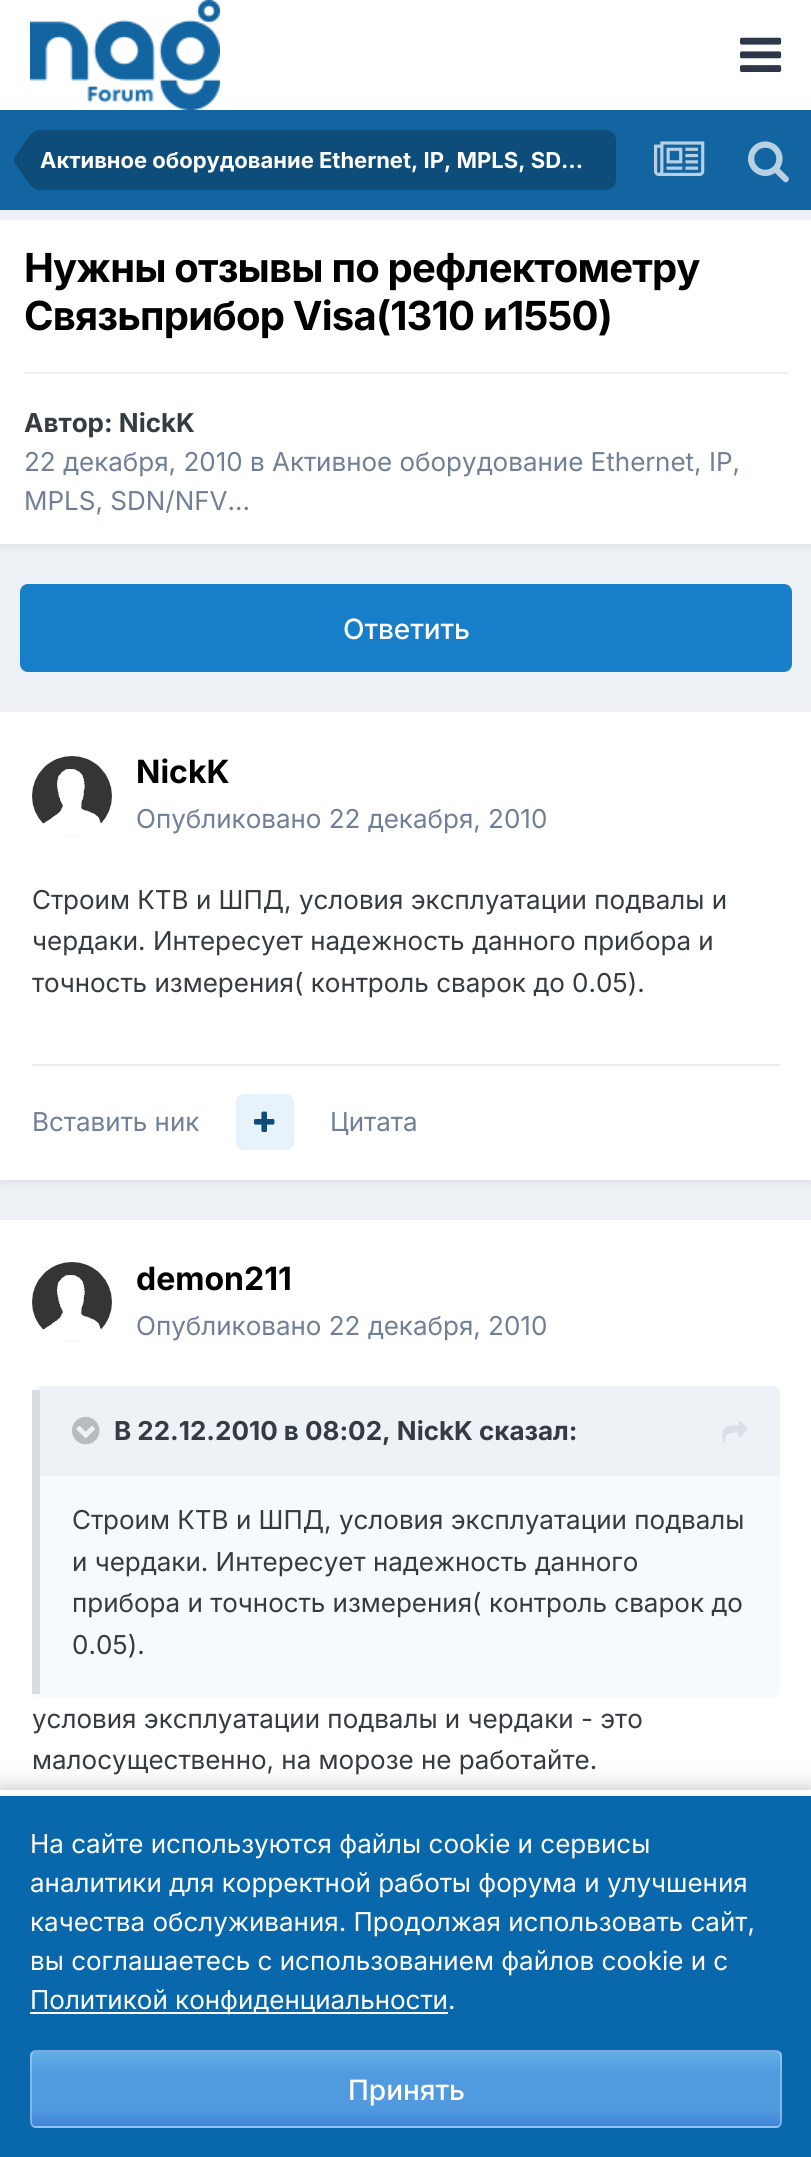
#include <cairo.h>
#include <math.h>
#include <stddef.h>


static void rgb(cairo_t *cr, int r, int g, int b)
{
	cairo_set_source_rgb(cr, r / 255.0, g / 255.0, b / 255.0);
}

static void face(cairo_t *cr, const char *family, double size, int italic, int bold)
{
	cairo_select_font_face(cr, family, italic ? CAIRO_FONT_SLANT_ITALIC : CAIRO_FONT_SLANT_NORMAL,
		bold ? CAIRO_FONT_WEIGHT_BOLD : CAIRO_FONT_WEIGHT_NORMAL);
	cairo_set_font_size(cr, size);
}

static void label(cairo_t *cr, double x, double y, const char *s)
{
	cairo_move_to(cr, x, y);
	cairo_show_text(cr, s);
}

static void tracked(cairo_t *cr, double x, double y, const char *s, double letter, double word)
{
	cairo_move_to(cr, x, y);
	while (*s) {
		char ch[5] = {0};
		int n = 0;
		do ch[n++] = *s++; while ((*s & 0xC0) == 0x80);
		cairo_show_text(cr, ch);
		cairo_rel_move_to(cr, letter + word * (*ch == ' '), 0);
	}
}

static void rect(cairo_t *cr, double x, double y, double w, double h)
{
	cairo_rectangle(cr, x, y, w, h);
	cairo_fill(cr);
}

static void rrect(cairo_t *cr, double x, double y, double w, double h, double r)
{
	cairo_new_sub_path(cr);
	cairo_arc(cr, x + w - r, y + h - r, r, 0, M_PI / 2);
	cairo_arc(cr, x + r, y + h - r, r, M_PI / 2, M_PI);
	cairo_arc(cr, x + r, y + r, r, M_PI, 1.5 * M_PI);
	cairo_arc(cr, x + w - r, y + r, r, 1.5 * M_PI, 2 * M_PI);
	cairo_close_path(cr);
}

static void soft_shadow(cairo_t *cr, double x, double y, double w, double h, double r, double blur, double alpha)
{
	cairo_push_group_with_content(cr, CAIRO_CONTENT_ALPHA);
	cairo_set_operator(cr, CAIRO_OPERATOR_SOURCE);
	for (int i = 15; i >= -15 && fmin(w, h) + blur * i / 3 > 0; i -= 2) {
		double e = blur * i / 6;
		cairo_set_source_rgba(cr, 0, 0, 0, alpha * erfc((i - 1) / 8.5) / 2);
		rrect(cr, x - e, y - e, w + 2 * e, h + 2 * e, fmax(0, fmin(r + e + blur * .6, fmin(w, h) / 2 + e)));
		cairo_fill(cr);
	}
	cairo_pattern_t *soft = cairo_pop_group(cr);
	cairo_mask(cr, soft);
	cairo_pattern_destroy(soft);
}

static void image(cairo_t *cr, const char *path, double x, double y, double w, double h)
{
	cairo_surface_t *image = cairo_image_surface_create_from_png(path);
	cairo_save(cr);
	cairo_set_source_surface(cr, image, x, y);
	cairo_rectangle(cr, x, y, w, h);
	cairo_fill(cr);
	cairo_restore(cr);
	cairo_surface_destroy(image);
}

static void draw(cairo_t *cr) {
	cairo_pattern_t *gradient;
	rgb(cr, 237, 240, 244);
	cairo_paint(cr);
	rgb(cr, 255, 255, 255);
	rect(cr, 0, 0, 811, 110);
	image(cr, "image0.png", 30, 0, 190, 110);
	image(cr, "image1.png", 740, 37, 42, 35);
	rgb(cr, 18, 101, 161);
	rect(cr, 0, 110, 811, 100);
	rgb(cr, 14, 76, 121);
	cairo_new_path(cr);
	cairo_move_to(cr, 40, 130);
	cairo_line_to(cr, 606, 130);
	cairo_curve_to(cr, 611.5, 130, 616, 134.5, 616, 140);
	cairo_line_to(cr, 616, 180);
	cairo_curve_to(cr, 616, 185.5, 611.5, 190, 606, 190);
	cairo_line_to(cr, 40, 190);
	cairo_close_path(cr);
	cairo_fill(cr);
	cairo_new_path(cr);
	cairo_move_to(cr, 40, 160);
	cairo_line_to(cr, 40, 190);
	cairo_curve_to(cr, 36.5, 190, 33, 188, 30, 185);
	cairo_line_to(cr, 15, 163.5);
	cairo_curve_to(cr, 14.5, 162.5, 14, 161.5, 14, 160);
	cairo_close_path(cr);
	cairo_move_to(cr, 40, 160);
	cairo_line_to(cr, 14, 160);
	cairo_curve_to(cr, 14, 158.5, 14.5, 157.5, 15, 156.5);
	cairo_line_to(cr, 30, 135);
	cairo_curve_to(cr, 33, 132, 36.5, 130, 40, 130);
	cairo_close_path(cr);
	cairo_fill(cr);
	face(cr, "Inter", 22, 0, 1);
	rgb(cr, 255, 255, 255);
	label(cr, 40, 168, "Активное оборудование Ethernet, IP, MPLS, SD…");
	image(cr, "image2.png", 654, 141, 51, 35);
	image(cr, "image3.png", 748, 141, 41, 42);
	rgb(cr, 45, 55, 72);
	soft_shadow(cr, 2, 226, 808, 320, 0, 4, 0.1);
	rgb(cr, 255, 255, 255);
	rect(cr, 0, 220, 811, 324);
	face(cr, "Inter", 40, 0, 1);
	rgb(cr, 0, 0, 0);
	tracked(cr, 24, 282, "Нужны отзывы по рефлектометру", -0.8, 0);
	tracked(cr, 24, 330, "Связьприбор Visa(1310 и1550)", -0.8, 0);
	rgb(cr, 239, 239, 240);
	rect(cr, 24, 372, 764, 2);
	face(cr, "Inter", 26, 0, 1);
	rgb(cr, 53, 60, 65);
	label(cr, 24, 432, "Автор: NickK");
	face(cr, "Inter", 26, 0, 0);
	rgb(cr, 113, 128, 150);
	label(cr, 24, 471, "22 декабря, 2010 в Активное оборудование Ethernet, IP,");
	label(cr, 24, 510, "MPLS, SDN/NFV...");
	rgb(cr, 23, 126, 201);
	rrect(cr, 20, 584, 772, 88, 8);
	cairo_fill(cr);
	face(cr, "Inter Medium", 28, 0, 0);
	rgb(cr, 255, 255, 255);
	label(cr, 343, 639, "Ответить");
	rgb(cr, 45, 55, 72);
	soft_shadow(cr, 2, 718, 808, 464, 0, 4, 0.1);
	rgb(cr, 255, 255, 255);
	rect(cr, 0, 712, 811, 468);
	image(cr, "image4.png", 32, 756, 80, 80);
	face(cr, "Inter", 32, 0, 1);
	rgb(cr, 0, 0, 0);
	label(cr, 136, 783, "NickK");
	face(cr, "Inter", 26, 0, 0);
	rgb(cr, 113, 128, 150);
	label(cr, 136, 828, "Опубликовано 22 декабря, 2010");
	rgb(cr, 53, 60, 65);
	label(cr, 32, 909, "Строим КТВ и ШПД, условия эксплуатации подвалы и");
	label(cr, 32, 950, "чердаки. Интересует надежность данного прибора и");
	label(cr, 32, 992, "точность измерения( контроль сварок до 0.05).");
	rgb(cr, 235, 236, 236);
	rect(cr, 32, 1064, 748, 2);
	rgb(cr, 113, 128, 150);
	label(cr, 32, 1131, "Вставить ник");
	rgb(cr, 232, 242, 250);
	rrect(cr, 236, 1094, 58, 56, 8);
	cairo_fill(cr);
	image(cr, "image5.png", 254, 1111, 21, 21);
	rgb(cr, 113, 128, 150);
	label(cr, 330, 1131, "Цитата");
	rgb(cr, 255, 255, 255);
	rect(cr, 0, 1220, 811, 570);
	image(cr, "image6.png", 32, 1262, 80, 80);
	face(cr, "Inter", 32, 0, 1);
	rgb(cr, 0, 0, 0);
	label(cr, 136, 1290, "demon211");
	face(cr, "Inter", 26, 0, 0);
	rgb(cr, 113, 128, 150);
	label(cr, 136, 1335, "Опубликовано 22 декабря, 2010");
	rgb(cr, 247, 250, 252);
	rrect(cr, 32, 1386, 748, 312, 8);
	cairo_fill(cr);
	cairo_set_source_rgba(cr, 0.176, 0.216, 0.282, 0.15);
	rect(cr, 32, 1390, 8, 304);
	rgb(cr, 237, 242, 247);
	cairo_new_path(cr);
	cairo_move_to(cr, 40, 1386);
	cairo_line_to(cr, 772, 1386);
	cairo_curve_to(cr, 776.5, 1386, 780, 1389.5, 780, 1394);
	cairo_line_to(cr, 780, 1476);
	cairo_line_to(cr, 40, 1476);
	cairo_close_path(cr);
	cairo_fill(cr);
	image(cr, "image7.png", 72, 1416, 28, 29);
	face(cr, "Inter", 26, 0, 1);
	rgb(cr, 53, 60, 65);
	label(cr, 114, 1440, "В 22.12.2010 в 08:02, NickK сказал:");
	image(cr, "image8.png", 722, 1420, 26, 24);
	face(cr, "Inter", 26, 0, 0);
	label(cr, 72, 1529, "Строим КТВ и ШПД, условия эксплуатации подвалы");
	label(cr, 72, 1571, "и чердаки. Интересует надежность данного");
	label(cr, 72, 1612, "прибора и точность измерения( контроль сварок до");
	label(cr, 72, 1654, "0.05).");
	label(cr, 32, 1728, "условия эксплуатации подвалы и чердаки - это");
	label(cr, 32, 1769, "малосущественно, на морозе не работайте.");
	rgb(cr, 0, 0, 0);
	soft_shadow(cr, 0, 1786, 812, 368, 0, 10, 0.2);
	rgb(cr, 9, 104, 172);
	rect(cr, 0, 1796, 811, 361);
	rgb(cr, 255, 255, 255);
	rect(cr, 0, 1790, 811, 6);
	label(cr, 30, 1853, "На сайте используются файлы cookie и сервисы");
	label(cr, 30, 1892, "аналитики для корректной работы форума и улучшения");
	label(cr, 30, 1931, "качества обслуживания. Продолжая использовать сайт,");
	label(cr, 30, 1970, "вы соглашаетесь с использованием файлов cookie и с");
	rect(cr, 30, 2012, 418, 2);
	label(cr, 30, 2009, "Политикой конфиденциальности.");
	cairo_save(cr);
	rrect(cr, 30, 2050, 752, 78, 6);
	cairo_clip(cr);
	gradient = cairo_pattern_create_linear(406, 1978, 406, 2052);
	cairo_pattern_add_color_stop_rgba(gradient, 0, 0.38, 0.682, 0.894, 1);
	cairo_pattern_add_color_stop_rgba(gradient, 0.28, 0.318, 0.604, 0.875, 1);
	cairo_pattern_add_color_stop_rgba(gradient, 0.77, 0.318, 0.604, 0.875, 1);
	cairo_pattern_add_color_stop_rgba(gradient, 1, 0.251, 0.522, 0.847, 1);
	cairo_set_source(cr, gradient);
	cairo_pattern_destroy(gradient);
	rect(cr, 30, 2050, 752, 2);
	gradient = cairo_pattern_create_linear(406, 2052, 406, 2126);
	cairo_pattern_add_color_stop_rgba(gradient, 0, 0.38, 0.682, 0.894, 1);
	cairo_pattern_add_color_stop_rgba(gradient, 0.28, 0.318, 0.604, 0.875, 1);
	cairo_pattern_add_color_stop_rgba(gradient, 0.77, 0.318, 0.604, 0.875, 1);
	cairo_pattern_add_color_stop_rgba(gradient, 1, 0.251, 0.522, 0.847, 1);
	cairo_set_source(cr, gradient);
	cairo_pattern_destroy(gradient);
	rect(cr, 30, 2052, 752, 74);
	gradient = cairo_pattern_create_linear(406, 2126, 406, 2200);
	cairo_pattern_add_color_stop_rgba(gradient, 0, 0.38, 0.682, 0.894, 1);
	cairo_pattern_add_color_stop_rgba(gradient, 0.28, 0.318, 0.604, 0.875, 1);
	cairo_pattern_add_color_stop_rgba(gradient, 0.77, 0.318, 0.604, 0.875, 1);
	cairo_pattern_add_color_stop_rgba(gradient, 1, 0.251, 0.522, 0.847, 1);
	cairo_set_source(cr, gradient);
	cairo_pattern_destroy(gradient);
	rect(cr, 30, 2126, 752, 2);
	cairo_restore(cr);
	rrect(cr, 31, 2051, 750, 76, 5);
	cairo_set_source_rgba(cr, 1, 1, 1, 0.3);
	cairo_stroke(cr);
	face(cr, "Inter Medium", 28, 0, 0);
	rgb(cr, 255, 255, 255);
	label(cr, 348, 2100, "Принять");
}

int main(void) {
	cairo_surface_t *surface = cairo_image_surface_create(CAIRO_FORMAT_RGB24, 811, 2157);
	cairo_t *cr = cairo_create(surface);
	cairo_font_options_t *options = cairo_font_options_create();
	cairo_font_options_set_hint_metrics(options, CAIRO_HINT_METRICS_OFF);
	cairo_font_options_set_hint_style(options, CAIRO_HINT_STYLE_NONE);
	cairo_set_font_options(cr, options);
	cairo_set_miter_limit(cr, 4);
	draw(cr);
	cairo_surface_write_to_png(surface, "render.png");
	cairo_font_options_destroy(options);
	cairo_destroy(cr);
	cairo_surface_destroy(surface);
	return 0;
}
